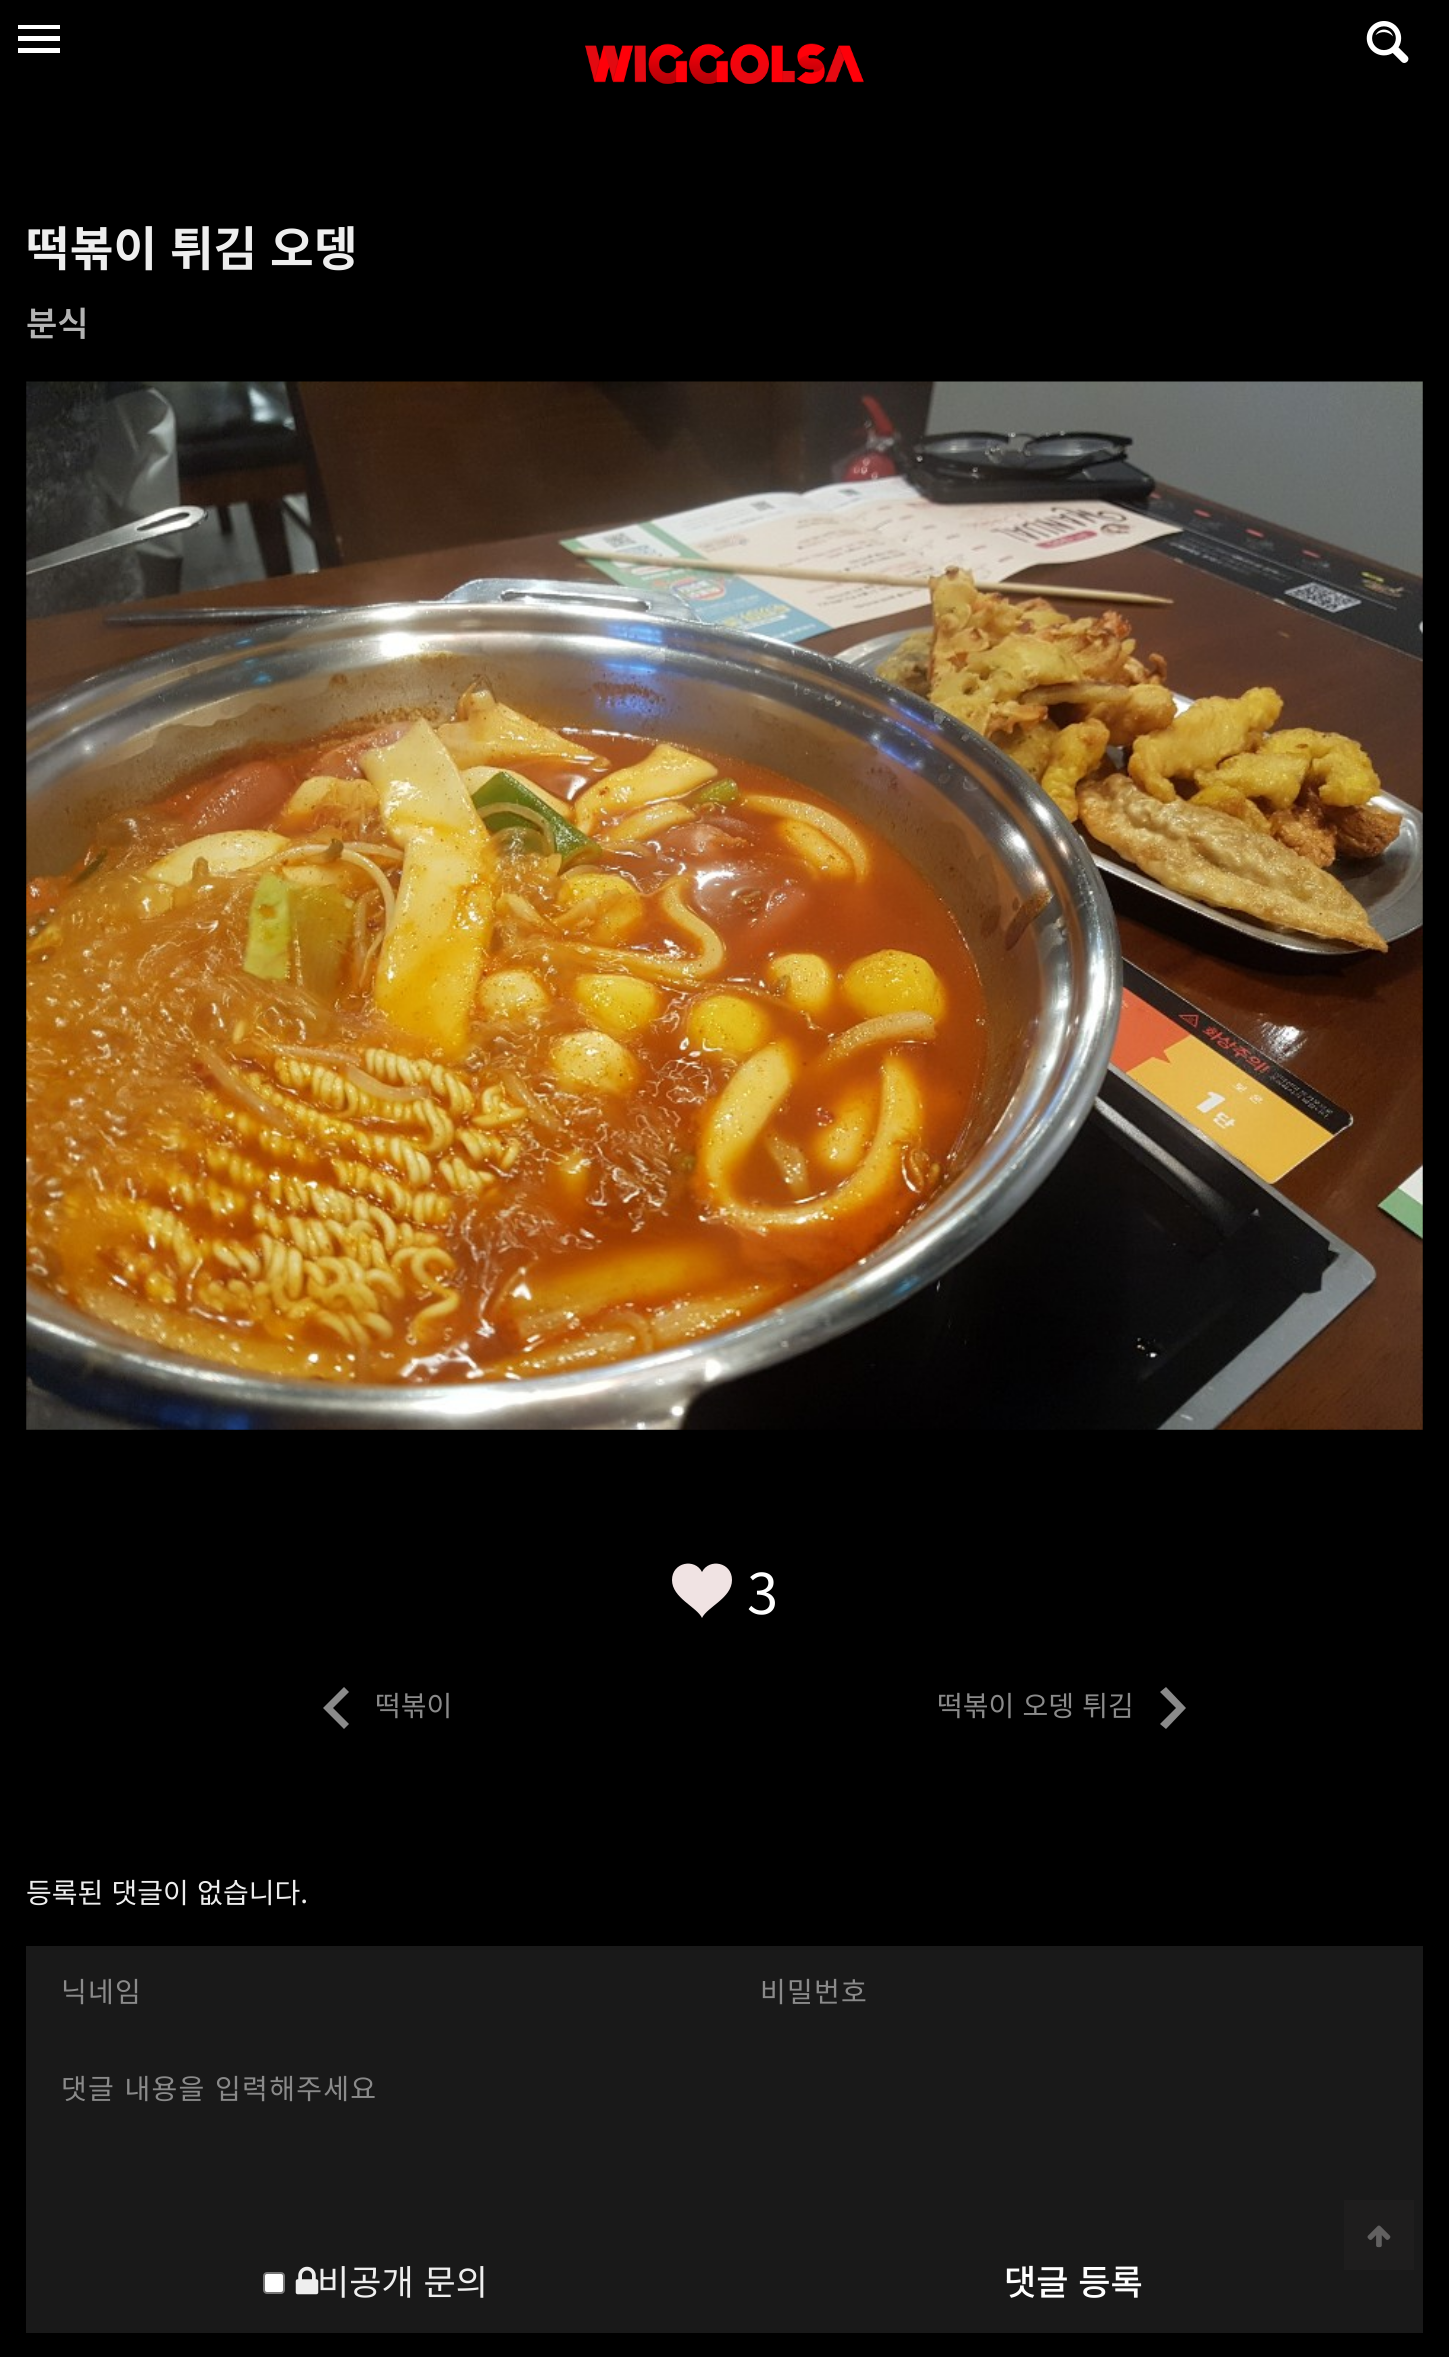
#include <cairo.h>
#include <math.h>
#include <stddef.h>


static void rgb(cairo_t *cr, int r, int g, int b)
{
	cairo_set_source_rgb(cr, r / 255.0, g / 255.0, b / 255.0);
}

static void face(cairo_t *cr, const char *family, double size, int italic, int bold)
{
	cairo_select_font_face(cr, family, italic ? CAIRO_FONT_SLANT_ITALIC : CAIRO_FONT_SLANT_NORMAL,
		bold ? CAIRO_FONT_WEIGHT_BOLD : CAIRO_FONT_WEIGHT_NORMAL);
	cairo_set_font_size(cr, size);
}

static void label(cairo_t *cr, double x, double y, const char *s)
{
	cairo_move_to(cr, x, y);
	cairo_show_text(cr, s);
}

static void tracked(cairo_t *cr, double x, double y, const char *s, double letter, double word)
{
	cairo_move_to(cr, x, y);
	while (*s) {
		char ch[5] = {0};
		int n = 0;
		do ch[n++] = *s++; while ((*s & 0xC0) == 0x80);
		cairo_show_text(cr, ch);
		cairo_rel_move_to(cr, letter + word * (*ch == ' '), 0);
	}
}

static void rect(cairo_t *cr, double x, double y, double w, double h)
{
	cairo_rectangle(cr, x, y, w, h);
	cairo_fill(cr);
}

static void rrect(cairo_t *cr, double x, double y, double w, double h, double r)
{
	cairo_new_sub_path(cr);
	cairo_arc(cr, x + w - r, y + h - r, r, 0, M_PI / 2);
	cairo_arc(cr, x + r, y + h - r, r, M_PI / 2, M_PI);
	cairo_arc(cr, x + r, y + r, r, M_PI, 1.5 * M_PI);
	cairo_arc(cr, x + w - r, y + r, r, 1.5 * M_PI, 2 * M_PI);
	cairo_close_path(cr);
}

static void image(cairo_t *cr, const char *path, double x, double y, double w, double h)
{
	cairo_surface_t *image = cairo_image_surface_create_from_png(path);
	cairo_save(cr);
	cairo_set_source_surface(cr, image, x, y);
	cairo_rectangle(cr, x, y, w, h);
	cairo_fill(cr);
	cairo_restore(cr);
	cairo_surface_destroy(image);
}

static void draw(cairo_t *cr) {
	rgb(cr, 0, 0, 0);
	cairo_paint(cr);
	rgb(cr, 255, 255, 255);
	rect(cr, 18, 25, 42, 4);
	rect(cr, 18, 36, 42, 5);
	rect(cr, 18, 48, 42, 5);
	image(cr, "image0.png", 1366, 21, 43, 42);
	image(cr, "image1.png", 585, 43, 279, 41);
	face(cr, "Noto Sans KR", 47.5, 0, 1);
	rgb(cr, 238, 238, 238);
	tracked(cr, 26, 266, "떡볶이 튀김 오뎅", 0, 2);
	face(cr, "Noto Sans KR SemiBold", 34, 0, 0);
	rgb(cr, 179, 179, 179);
	label(cr, 26, 336, "분식");
	image(cr, "image2.png", 26, 381, 1397, 1049);
	rgb(cr, 240, 227, 227);
	cairo_new_path(cr);
	cairo_move_to(cr, 702, 1572);
	cairo_curve_to(cr, 695, 1558, 672, 1562, 672, 1580);
	cairo_curve_to(cr, 672, 1598, 697, 1607, 702, 1618);
	cairo_curve_to(cr, 707, 1607, 732, 1598, 732, 1580);
	cairo_curve_to(cr, 732, 1562, 709, 1558, 702, 1572);
	cairo_close_path(cr);
	cairo_fill(cr);
	face(cr, "Noto Sans KR", 56, 0, 0);
	rgb(cr, 255, 255, 255);
	label(cr, 747, 1614, "3");
	rgb(cr, 138, 138, 138);
	cairo_new_path(cr);
	cairo_move_to(cr, 344, 1687);
	cairo_line_to(cr, 349, 1692);
	cairo_line_to(cr, 333, 1708);
	cairo_line_to(cr, 349, 1724);
	cairo_line_to(cr, 344, 1729);
	cairo_line_to(cr, 323, 1708);
	cairo_close_path(cr);
	cairo_fill(cr);
	face(cr, "Noto Sans KR", 28, 0, 0);
	label(cr, 375, 1716, "떡볶이");
	tracked(cr, 937, 1716, "떡볶이 오뎅 튀김", 0, 2);
	cairo_new_path(cr);
	cairo_move_to(cr, 1160, 1692);
	cairo_line_to(cr, 1166, 1687);
	cairo_line_to(cr, 1186, 1708);
	cairo_line_to(cr, 1166, 1729);
	cairo_line_to(cr, 1160, 1724);
	cairo_line_to(cr, 1176, 1708);
	cairo_close_path(cr);
	cairo_fill(cr);
	rgb(cr, 238, 238, 238);
	tracked(cr, 26, 1903, "등록된 댓글이 없습니다.", 0, 2);
	rgb(cr, 25, 25, 25);
	rect(cr, 26, 1946, 1397, 263);
	rgb(cr, 138, 138, 138);
	tracked(cr, 61, 2002, "닉네임", 1.25, 0);
	tracked(cr, 760, 2002, "비밀번호", 1.25, 0);
	tracked(cr, 61, 2099, "댓글 내용을 입력해주세요", 1.25, 2);
	rgb(cr, 25, 25, 25);
	rect(cr, 26, 2209, 1397, 19);
	rect(cr, 26, 2228, 1397, 105);
	rgb(cr, 255, 255, 255);
	rrect(cr, 264, 2273, 20, 20, 3);
	cairo_fill_preserve(cr);
	rgb(cr, 118, 118, 118);
	cairo_stroke(cr);
	image(cr, "image3.png", 295, 2266, 24, 29);
	face(cr, "Noto Sans KR", 35, 0, 0);
	rgb(cr, 238, 238, 238);
	tracked(cr, 317, 2295, "비공개 문의", 0, 2);
	face(cr, "Noto Sans KR Medium", 35, 0, 0);
	rgb(cr, 255, 255, 255);
	tracked(cr, 1004, 2295, "댓글 등록", 0, 2);
	rgb(cr, 30, 29, 29);
	rect(cr, 1344, 2200, 70, 70);
	image(cr, "image4.png", 1367, 2225, 24, 23);
}

int main(void) {
	cairo_surface_t *surface = cairo_image_surface_create(CAIRO_FORMAT_RGB24, 1449, 2357);
	cairo_t *cr = cairo_create(surface);
	cairo_font_options_t *options = cairo_font_options_create();
	cairo_font_options_set_hint_metrics(options, CAIRO_HINT_METRICS_OFF);
	cairo_font_options_set_hint_style(options, CAIRO_HINT_STYLE_NONE);
	cairo_set_font_options(cr, options);
	cairo_set_miter_limit(cr, 4);
	draw(cr);
	cairo_surface_write_to_png(surface, "render.png");
	cairo_font_options_destroy(options);
	cairo_destroy(cr);
	cairo_surface_destroy(surface);
	return 0;
}
